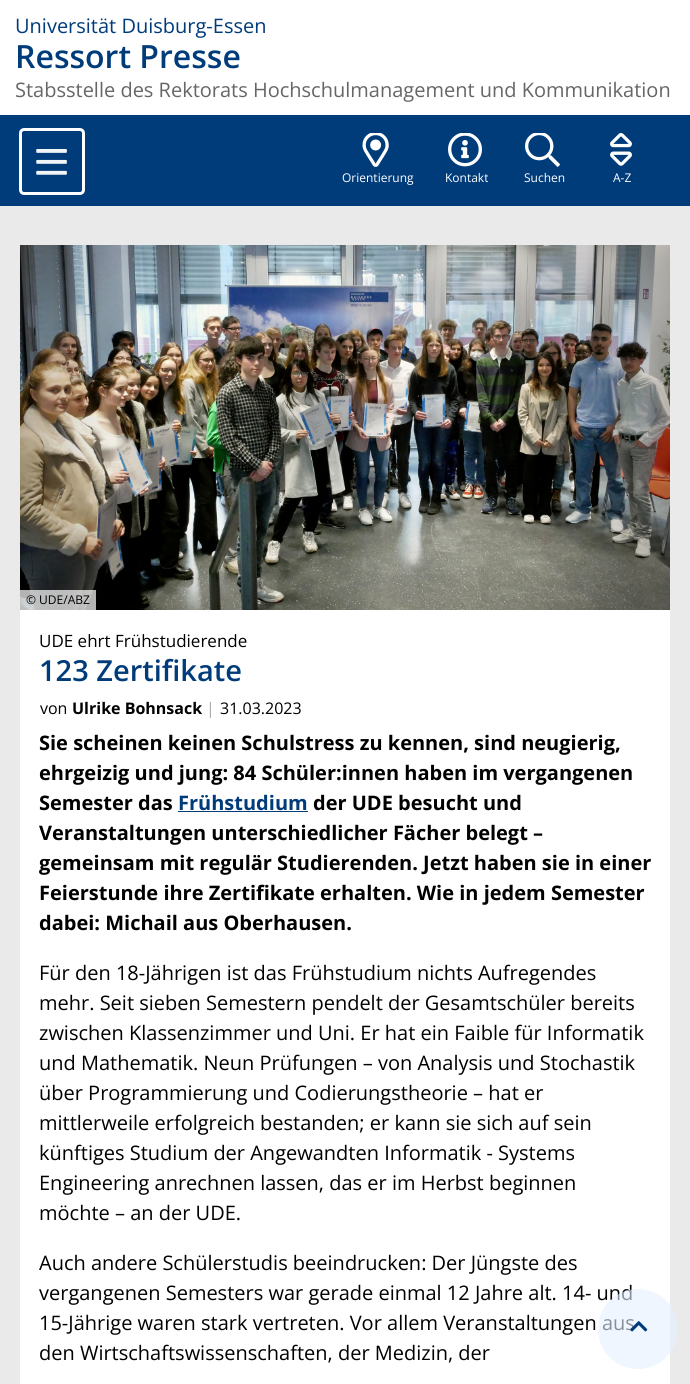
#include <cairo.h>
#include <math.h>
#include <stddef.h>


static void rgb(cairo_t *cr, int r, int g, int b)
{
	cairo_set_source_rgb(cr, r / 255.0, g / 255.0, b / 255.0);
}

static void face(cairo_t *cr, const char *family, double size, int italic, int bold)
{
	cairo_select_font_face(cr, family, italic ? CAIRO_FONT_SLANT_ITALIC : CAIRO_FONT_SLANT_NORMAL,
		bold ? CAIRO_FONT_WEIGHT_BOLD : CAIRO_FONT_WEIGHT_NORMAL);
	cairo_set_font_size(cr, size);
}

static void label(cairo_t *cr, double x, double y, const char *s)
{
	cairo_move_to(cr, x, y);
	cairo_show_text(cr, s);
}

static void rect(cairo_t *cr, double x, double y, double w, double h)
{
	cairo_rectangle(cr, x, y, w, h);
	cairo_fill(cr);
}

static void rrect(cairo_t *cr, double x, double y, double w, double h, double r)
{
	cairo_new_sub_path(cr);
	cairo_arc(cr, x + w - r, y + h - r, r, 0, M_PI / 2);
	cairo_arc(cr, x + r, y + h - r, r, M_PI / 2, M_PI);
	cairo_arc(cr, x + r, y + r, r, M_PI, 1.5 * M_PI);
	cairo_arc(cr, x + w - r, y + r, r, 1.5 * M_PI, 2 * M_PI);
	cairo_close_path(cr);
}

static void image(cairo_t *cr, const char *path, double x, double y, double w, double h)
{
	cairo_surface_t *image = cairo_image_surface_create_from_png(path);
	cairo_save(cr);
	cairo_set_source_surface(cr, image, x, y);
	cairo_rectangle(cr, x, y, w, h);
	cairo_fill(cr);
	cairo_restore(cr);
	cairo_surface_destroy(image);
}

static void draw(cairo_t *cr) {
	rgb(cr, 255, 255, 255);
	cairo_paint(cr);
	face(cr, "Open Sans", 20, 0, 0);
	rgb(cr, 0, 59, 122);
	label(cr, 15, 33, "Universität Duisburg-Essen");
	face(cr, "Open Sans SemiBold", 32, 0, 0);
	label(cr, 15, 68, "Ressort Presse");
	face(cr, "Open Sans", 20, 0, 0);
	rgb(cr, 102, 102, 102);
	label(cr, 15, 97, "Stabsstelle des Rektorats Hochschulmanagement und Kommunikation");
	rgb(cr, 0, 59, 122);
	rect(cr, 0, 115, 690, 91);
	rrect(cr, 20.5, 129.5, 63, 64, 3.5);
	rgb(cr, 255, 255, 255);
	cairo_set_line_width(cr, 3);
	cairo_stroke(cr);
	image(cr, "image0.png", 36, 149, 31, 26);
	image(cr, "image1.png", 362, 133, 27, 34);
	face(cr, "Open Sans", 12, 0, 0);
	label(cr, 342, 182, "Orientierung");
	image(cr, "image2.png", 448, 133, 34, 34);
	label(cr, 445, 182, "Kontakt");
	image(cr, "image3.png", 525, 133, 35, 34);
	label(cr, 524, 182, "Suchen");
	image(cr, "image4.png", 610, 133, 22, 33);
	label(cr, 613, 182, "A-Z");
	rgb(cr, 234, 234, 234);
	rect(cr, 0, 206, 690, 1178);
	rgb(cr, 255, 255, 255);
	rect(cr, 20, 610, 650, 774);
	image(cr, "image5.png", 20, 245, 650, 365);
	cairo_set_source_rgba(cr, 1, 1, 1, 0.7);
	rect(cr, 20, 590, 76, 20);
	rgb(cr, 0, 0, 0);
	label(cr, 26, 604, "© UDE/ABZ");
	face(cr, "Open Sans", 17, 0, 0);
	label(cr, 39, 647, "UDE ehrt Frühstudierende");
	face(cr, "Open Sans SemiBold", 29, 0, 0);
	rgb(cr, 0, 59, 122);
	label(cr, 39, 681, "123 Zertifikate");
	face(cr, "Open Sans", 16, 0, 0);
	rgb(cr, 0, 0, 0);
	label(cr, 40, 714, "von");
	face(cr, "Open Sans", 16, 0, 1);
	label(cr, 72, 714, "Ulrike Bohnsack");
	face(cr, "Open Sans", 16, 0, 0);
	rgb(cr, 170, 170, 170);
	label(cr, 206, 714, "|");
	rgb(cr, 0, 0, 0);
	label(cr, 220, 714, "31.03.2023");
	face(cr, "Open Sans", 20, 0, 1);
	label(cr, 39, 750, "Sie scheinen keinen Schulstress zu kennen, sind neugierig,");
	label(cr, 39, 780, "ehrgeizig und jung: 84 Schüler:innen haben im vergangenen");
	label(cr, 39, 810, "Semester das");
	rgb(cr, 0, 59, 122);
	label(cr, 178, 810, "Frühstudium");
	rect(cr, 178, 811, 130, 1);
	rgb(cr, 0, 0, 0);
	label(cr, 313, 810, "der UDE besucht und");
	label(cr, 39, 840, "Veranstaltungen unterschiedlicher Fächer belegt –");
	label(cr, 39, 870, "gemeinsam mit regulär Studierenden. Jetzt haben sie in einer");
	label(cr, 39, 900, "Feierstunde ihre Zertifikate erhalten. Wie in jedem Semester");
	label(cr, 39, 930, "dabei: Michail aus Oberhausen.");
	face(cr, "Open Sans", 20, 0, 0);
	label(cr, 39, 980, "Für den 18-Jährigen ist das Frühstudium nichts Aufregendes");
	label(cr, 39, 1010, "mehr. Seit sieben Semestern pendelt der Gesamtschüler bereits");
	label(cr, 39, 1040, "zwischen Klassenzimmer und Uni. Er hat ein Faible für Informatik");
	label(cr, 39, 1070, "und Mathematik. Neun Prüfungen – von Analysis und Stochastik");
	label(cr, 39, 1100, "über Programmierung und Codierungstheorie – hat er");
	label(cr, 39, 1130, "mittlerweile erfolgreich bestanden; er kann sie sich auf sein");
	label(cr, 39, 1160, "künftiges Studium der Angewandten Informatik - Systems");
	label(cr, 39, 1190, "Engineering anrechnen lassen, das er im Herbst beginnen");
	label(cr, 39, 1220, "möchte – an der UDE.");
	label(cr, 39, 1270, "Auch andere Schülerstudis beeindrucken: Der Jüngste des");
	label(cr, 39, 1300, "vergangenen Semesters war gerade einmal 12 Jahre alt. 14- und");
	label(cr, 39, 1330, "15-Jährige waren stark vertreten. Vor allem Veranstaltungen aus");
	label(cr, 39, 1360, "den Wirtschaftswissenschaften, der Medizin, der");
	cairo_set_source_rgba(cr, 0.894, 0.941, 1, 0.6);
	cairo_new_path(cr);
	cairo_arc(cr, 638, 1329, 40, 0, 2 * M_PI);
	cairo_fill(cr);
	image(cr, "image6.png", 630, 1321, 18, 11);
}

int main(void) {
	cairo_surface_t *surface = cairo_image_surface_create(CAIRO_FORMAT_RGB24, 690, 1384);
	cairo_t *cr = cairo_create(surface);
	cairo_font_options_t *options = cairo_font_options_create();
	cairo_font_options_set_hint_metrics(options, CAIRO_HINT_METRICS_OFF);
	cairo_font_options_set_hint_style(options, CAIRO_HINT_STYLE_NONE);
	cairo_set_font_options(cr, options);
	cairo_set_miter_limit(cr, 4);
	draw(cr);
	cairo_surface_write_to_png(surface, "render.png");
	cairo_font_options_destroy(options);
	cairo_destroy(cr);
	cairo_surface_destroy(surface);
	return 0;
}
